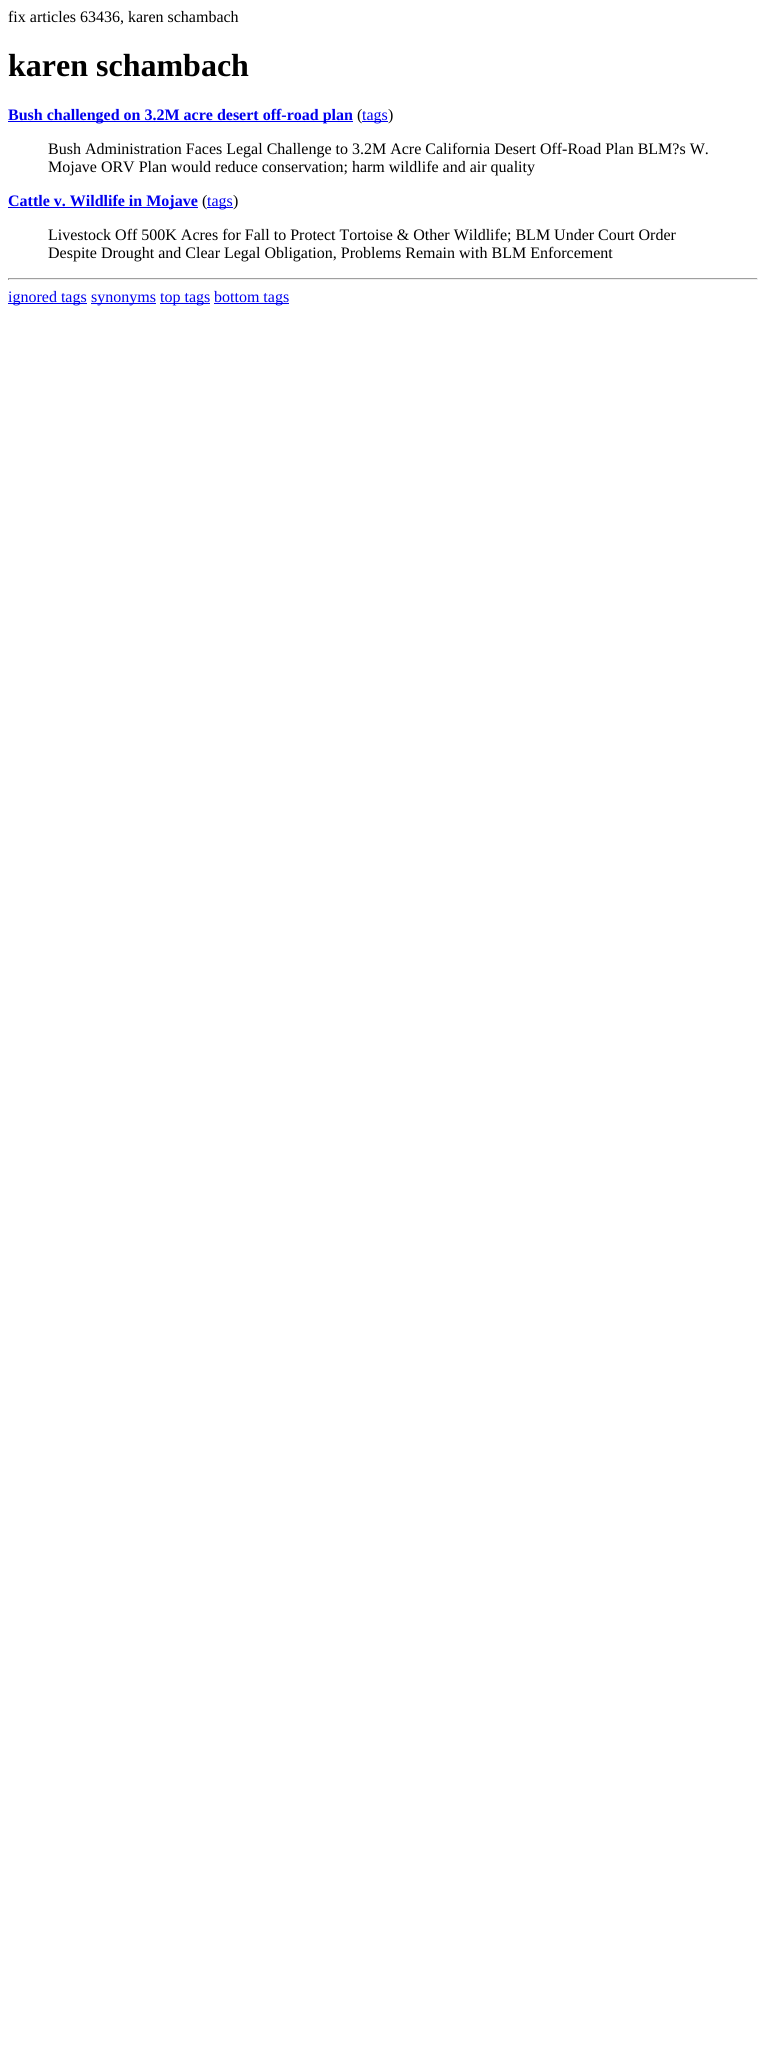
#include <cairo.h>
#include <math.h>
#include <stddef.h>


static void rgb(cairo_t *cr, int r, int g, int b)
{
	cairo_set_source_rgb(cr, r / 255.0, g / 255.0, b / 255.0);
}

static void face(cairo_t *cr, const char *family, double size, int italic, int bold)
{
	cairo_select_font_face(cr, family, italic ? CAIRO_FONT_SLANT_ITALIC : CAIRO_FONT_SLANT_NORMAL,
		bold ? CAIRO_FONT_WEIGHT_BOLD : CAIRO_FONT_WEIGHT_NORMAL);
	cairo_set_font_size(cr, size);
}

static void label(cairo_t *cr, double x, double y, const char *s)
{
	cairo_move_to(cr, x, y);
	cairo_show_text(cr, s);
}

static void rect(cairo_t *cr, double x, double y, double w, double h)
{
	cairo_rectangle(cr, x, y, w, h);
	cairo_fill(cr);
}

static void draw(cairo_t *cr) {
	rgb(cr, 255, 255, 255);
	cairo_paint(cr);
	face(cr, "Liberation Serif", 16, 0, 0);
	rgb(cr, 0, 0, 0);
	label(cr, 8, 22, "fix articles 63436, karen schambach");
	face(cr, "Liberation Serif", 32, 0, 1);
	label(cr, 8, 76, "karen schambach");
	rgb(cr, 0, 0, 238);
	rect(cr, 8, 121, 345, 1);
	face(cr, "Liberation Serif", 16, 0, 1);
	label(cr, 8, 120, "Bush challenged on 3.2M acre desert off-road plan");
	face(cr, "Liberation Serif", 16, 0, 0);
	rgb(cr, 0, 0, 0);
	label(cr, 357, 120, "(");
	rgb(cr, 0, 0, 238);
	rect(cr, 362, 121, 26, 1);
	label(cr, 362, 120, "tags");
	rgb(cr, 0, 0, 0);
	label(cr, 388, 120, ")");
	label(cr, 48, 154, "Bush Administration Faces Legal Challenge to 3.2M Acre California Desert Off-Road Plan BLM?s W.");
	label(cr, 48, 172, "Mojave ORV Plan would reduce conservation; harm wildlife and air quality");
	rgb(cr, 0, 0, 238);
	rect(cr, 8, 207, 190, 1);
	face(cr, "Liberation Serif", 16, 0, 1);
	label(cr, 8, 206, "Cattle v. Wildlife in Mojave");
	face(cr, "Liberation Serif", 16, 0, 0);
	rgb(cr, 0, 0, 0);
	label(cr, 202, 206, "(");
	rgb(cr, 0, 0, 238);
	rect(cr, 207, 207, 26, 1);
	label(cr, 207, 206, "tags");
	rgb(cr, 0, 0, 0);
	label(cr, 233, 206, ")");
	label(cr, 48, 240, "Livestock Off 500K Acres for Fall to Protect Tortoise & Other Wildlife; BLM Under Court Order");
	label(cr, 48, 258, "Despite Drought and Clear Legal Obligation, Problems Remain with BLM Enforcement");
	rgb(cr, 159, 159, 159);
	rect(cr, 8, 278, 750, 1);
	rgb(cr, 238, 238, 238);
	rect(cr, 757, 278, 1, 2);
	rect(cr, 8, 279, 750, 1);
	rgb(cr, 159, 159, 159);
	rect(cr, 8, 278, 1, 2);
	rgb(cr, 0, 0, 238);
	rect(cr, 8, 303, 79, 1);
	label(cr, 8, 302, "ignored tags");
	rect(cr, 91, 303, 65, 1);
	label(cr, 91, 302, "synonyms");
	rect(cr, 160, 303, 50, 1);
	label(cr, 160, 302, "top tags");
	rect(cr, 214, 303, 75, 1);
	label(cr, 214, 302, "bottom tags");
}

int main(void) {
	cairo_surface_t *surface = cairo_image_surface_create(CAIRO_FORMAT_RGB24, 766, 2072);
	cairo_t *cr = cairo_create(surface);
	cairo_font_options_t *options = cairo_font_options_create();
	cairo_font_options_set_hint_metrics(options, CAIRO_HINT_METRICS_OFF);
	cairo_font_options_set_hint_style(options, CAIRO_HINT_STYLE_NONE);
	cairo_set_font_options(cr, options);
	cairo_set_miter_limit(cr, 4);
	draw(cr);
	cairo_surface_write_to_png(surface, "render.png");
	cairo_font_options_destroy(options);
	cairo_destroy(cr);
	cairo_surface_destroy(surface);
	return 0;
}
